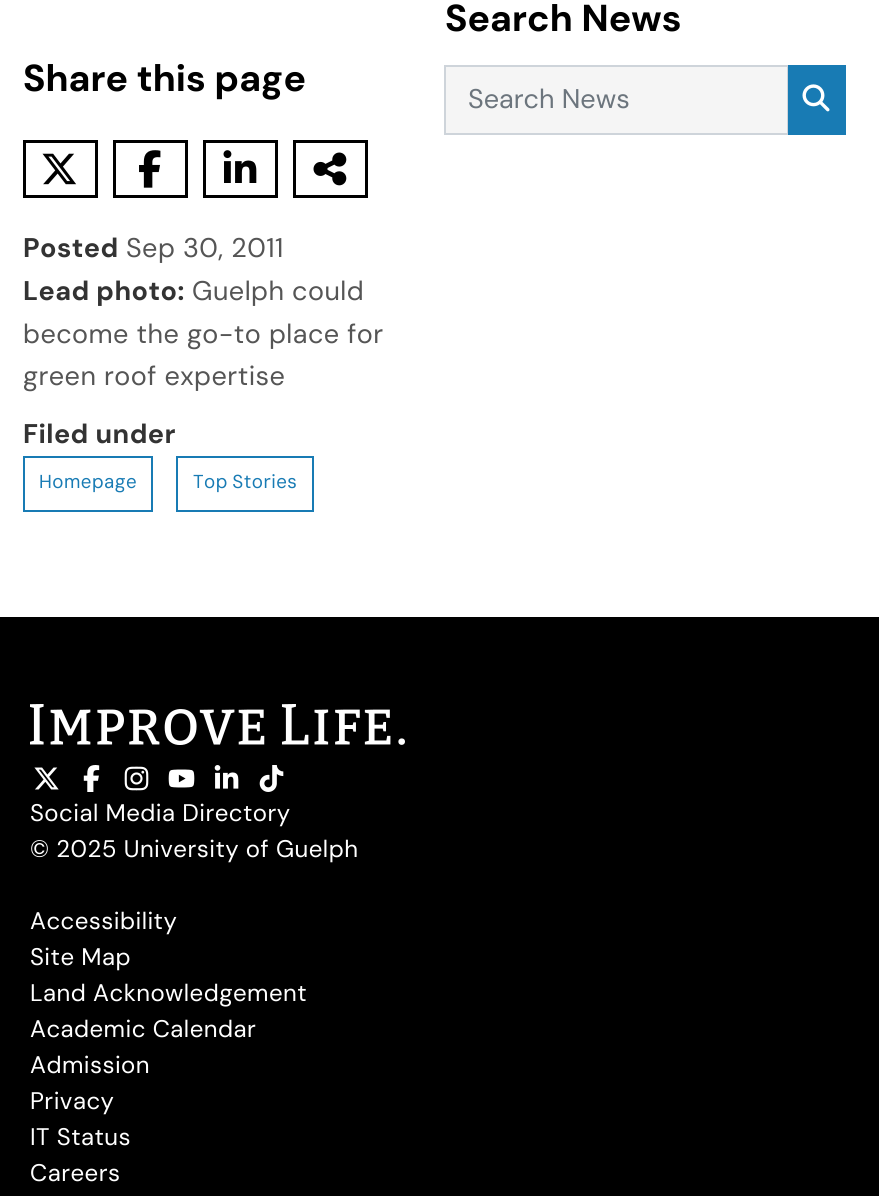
#include <cairo.h>
#include <math.h>
#include <stddef.h>


static void rgb(cairo_t *cr, int r, int g, int b)
{
	cairo_set_source_rgb(cr, r / 255.0, g / 255.0, b / 255.0);
}

static void face(cairo_t *cr, const char *family, double size, int italic, int bold)
{
	cairo_select_font_face(cr, family, italic ? CAIRO_FONT_SLANT_ITALIC : CAIRO_FONT_SLANT_NORMAL,
		bold ? CAIRO_FONT_WEIGHT_BOLD : CAIRO_FONT_WEIGHT_NORMAL);
	cairo_set_font_size(cr, size);
}

static void label(cairo_t *cr, double x, double y, const char *s)
{
	cairo_move_to(cr, x, y);
	cairo_show_text(cr, s);
}

static void tracked(cairo_t *cr, double x, double y, const char *s, double letter, double word)
{
	cairo_move_to(cr, x, y);
	while (*s) {
		char ch[5] = {0};
		int n = 0;
		do ch[n++] = *s++; while ((*s & 0xC0) == 0x80);
		cairo_show_text(cr, ch);
		cairo_rel_move_to(cr, letter + word * (*ch == ' '), 0);
	}
}

static void rect(cairo_t *cr, double x, double y, double w, double h)
{
	cairo_rectangle(cr, x, y, w, h);
	cairo_fill(cr);
}

static void image(cairo_t *cr, const char *path, double x, double y, double w, double h)
{
	cairo_surface_t *image = cairo_image_surface_create_from_png(path);
	cairo_save(cr);
	cairo_set_source_surface(cr, image, x, y);
	cairo_rectangle(cr, x, y, w, h);
	cairo_fill(cr);
	cairo_restore(cr);
	cairo_surface_destroy(image);
}

static void draw(cairo_t *cr) {
	rgb(cr, 255, 255, 255);
	cairo_paint(cr);
	face(cr, "DM Sans", 37.5, 0, 1);
	rgb(cr, 0, 0, 0);
	tracked(cr, 23, 91, "Share this page", 0.1, 0);
	cairo_rectangle(cr, 24.5, 141.5, 72, 55);
	cairo_set_line_width(cr, 3);
	cairo_stroke(cr);
	image(cr, "image0.png", 42, 153, 35, 32);
	cairo_rectangle(cr, 114.5, 141.5, 72, 55);
	cairo_stroke(cr);
	image(cr, "image1.png", 139, 150, 22, 38);
	cairo_rectangle(cr, 204.5, 141.5, 72, 55);
	cairo_stroke(cr);
	image(cr, "image2.png", 223, 150, 34, 33);
	cairo_rectangle(cr, 294.5, 141.5, 72, 55);
	cairo_stroke(cr);
	image(cr, "image3.png", 313, 152, 34, 34);
	face(cr, "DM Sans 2", 27, 0, 1);
	rgb(cr, 51, 51, 51);
	tracked(cr, 23, 257, "Posted", 0.45, 0);
	face(cr, "DM Sans", 27, 0, 0);
	rgb(cr, 85, 85, 85);
	tracked(cr, 126, 257, "Sep 30, 2011", 0.45, 0);
	face(cr, "DM Sans 2", 27, 0, 1);
	rgb(cr, 51, 51, 51);
	tracked(cr, 23, 300, "Lead photo:", 0.45, 0);
	face(cr, "DM Sans", 27, 0, 0);
	rgb(cr, 85, 85, 85);
	tracked(cr, 192, 300, "Guelph could", 0.45, 0);
	tracked(cr, 23, 343, "become the go-to place for", 0.45, 0);
	tracked(cr, 23, 385, "green roof expertise", 0.45, 0);
	face(cr, "DM Sans 2", 27, 0, 1);
	rgb(cr, 51, 51, 51);
	tracked(cr, 23, 443, "Filed under", 0.45, 0);
	cairo_rectangle(cr, 24, 457, 128, 54);
	rgb(cr, 24, 123, 180);
	cairo_set_line_width(cr, 2);
	cairo_stroke(cr);
	face(cr, "DM Sans 2", 18.75, 0, 0);
	tracked(cr, 39, 488, "Homepage", 0.45, 0);
	cairo_rectangle(cr, 177, 457, 136, 54);
	cairo_stroke(cr);
	tracked(cr, 193, 488, "Top Stories", 0.45, -1);
	face(cr, "DM Sans", 37.5, 0, 1);
	rgb(cr, 0, 0, 0);
	tracked(cr, 445, 31, "Search News", 0.1, 0);
	rgb(cr, 245, 245, 245);
	cairo_rectangle(cr, 445, 66, 343, 68);
	cairo_fill_preserve(cr);
	rgb(cr, 206, 212, 218);
	cairo_stroke(cr);
	face(cr, "DM Sans", 27, 0, 0);
	rgb(cr, 108, 117, 125);
	label(cr, 468, 108, "Search News");
	rgb(cr, 24, 123, 180);
	rect(cr, 788, 65, 58, 70);
	image(cr, "image4.png", 802, 84, 28, 28);
	rgb(cr, 0, 0, 0);
	rect(cr, 0, 617, 879, 579);
	image(cr, "image5.png", 30, 704, 375, 41);
	image(cr, "image6.png", 34, 767, 25, 23);
	image(cr, "image7.png", 83, 765, 17, 27);
	image(cr, "image8.png", 124, 766, 25, 25);
	image(cr, "image9.png", 168, 769, 27, 19);
	image(cr, "image10.png", 214, 765, 25, 24);
	image(cr, "image11.png", 259, 765, 25, 27);
	face(cr, "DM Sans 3", 24, 0, 0);
	rgb(cr, 255, 255, 255);
	tracked(cr, 30, 821, "Social Media Directory", 0.45, 0);
	tracked(cr, 30, 857, "© 2025 University of Guelph", 0.45, 0);
	tracked(cr, 30, 929, "Accessibility", 0.45, 0);
	tracked(cr, 30, 965, "Site Map", 0.45, 0);
	tracked(cr, 30, 1001, "Land Acknowledgement", 0.45, 0);
	tracked(cr, 30, 1037, "Academic Calendar", 0.45, 0);
	tracked(cr, 30, 1073, "Admission", 0.45, 0);
	tracked(cr, 30, 1109, "Privacy", 0.45, 0);
	tracked(cr, 30, 1145, "IT Status", 0.45, 0);
	tracked(cr, 30, 1181, "Careers", 0.45, 0);
}

int main(void) {
	cairo_surface_t *surface = cairo_image_surface_create(CAIRO_FORMAT_RGB24, 879, 1196);
	cairo_t *cr = cairo_create(surface);
	cairo_font_options_t *options = cairo_font_options_create();
	cairo_font_options_set_hint_metrics(options, CAIRO_HINT_METRICS_OFF);
	cairo_font_options_set_hint_style(options, CAIRO_HINT_STYLE_NONE);
	cairo_set_font_options(cr, options);
	cairo_set_miter_limit(cr, 4);
	draw(cr);
	cairo_surface_write_to_png(surface, "render.png");
	cairo_font_options_destroy(options);
	cairo_destroy(cr);
	cairo_surface_destroy(surface);
	return 0;
}
